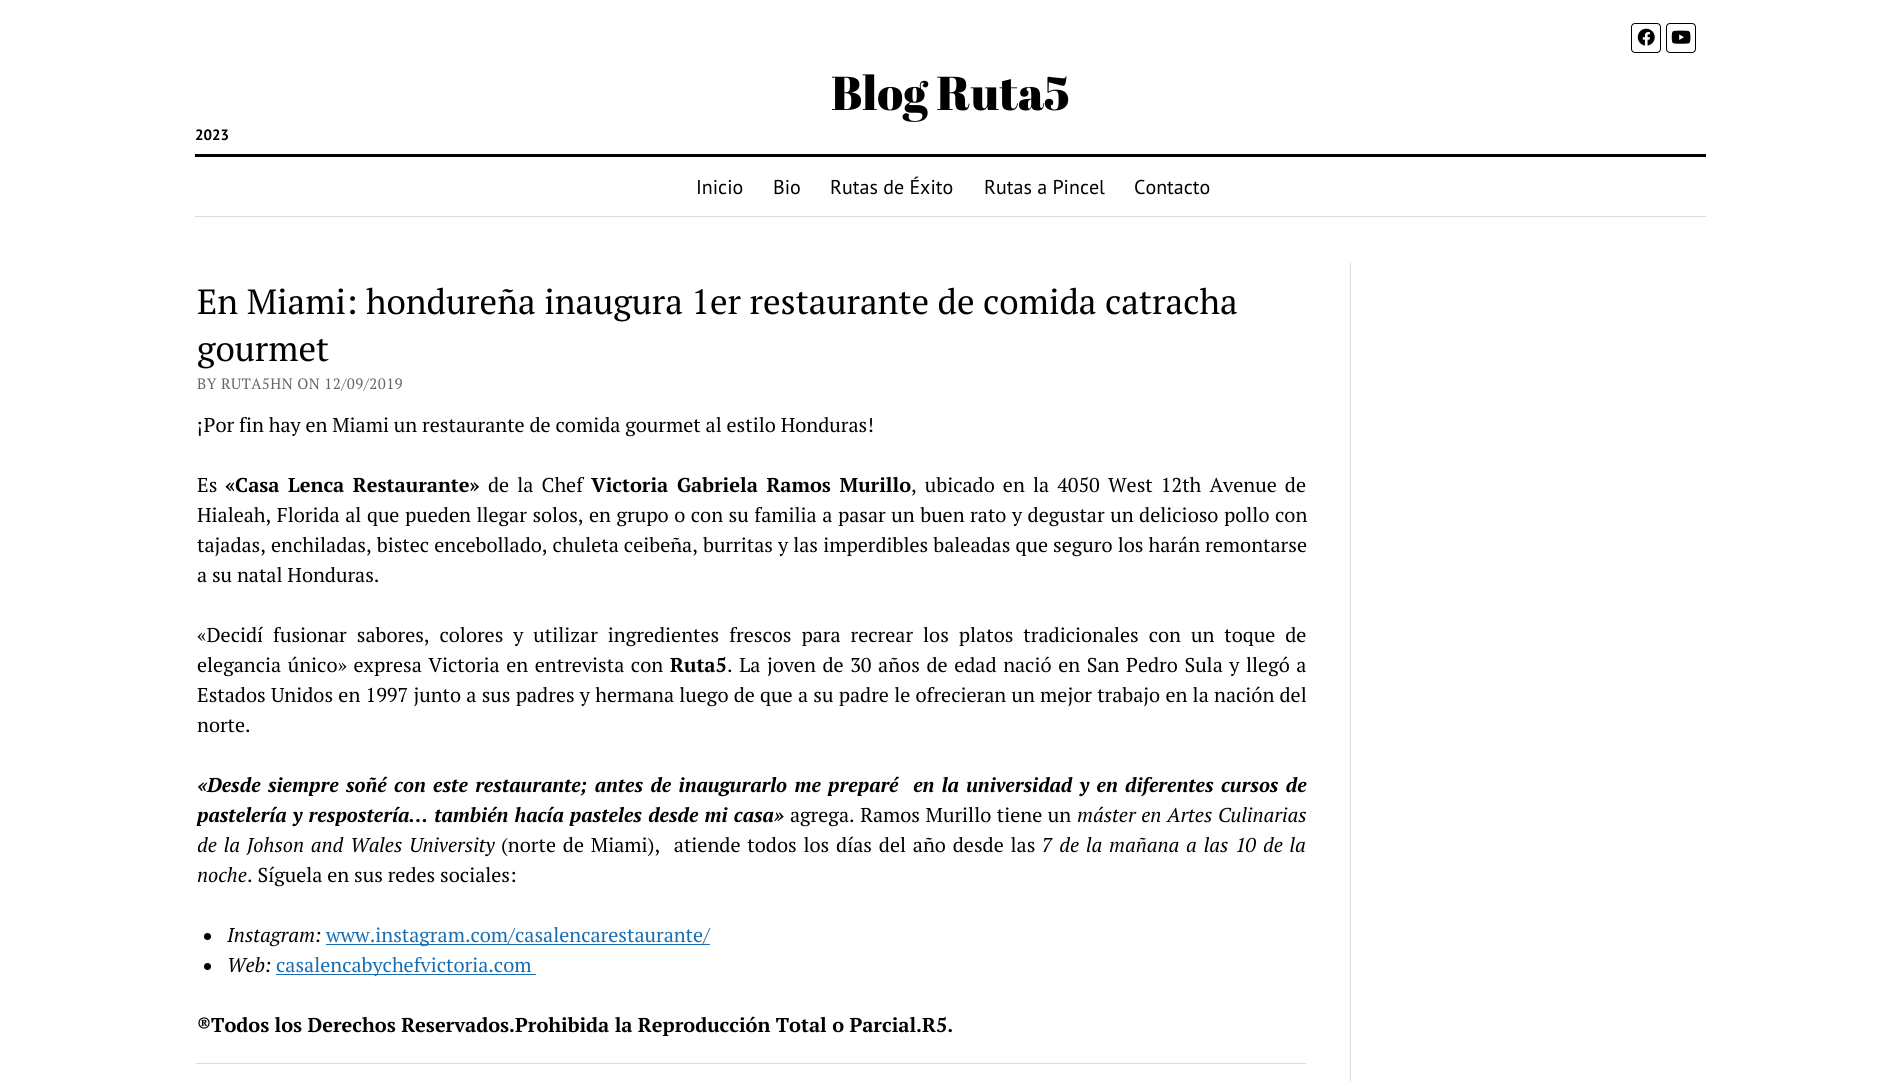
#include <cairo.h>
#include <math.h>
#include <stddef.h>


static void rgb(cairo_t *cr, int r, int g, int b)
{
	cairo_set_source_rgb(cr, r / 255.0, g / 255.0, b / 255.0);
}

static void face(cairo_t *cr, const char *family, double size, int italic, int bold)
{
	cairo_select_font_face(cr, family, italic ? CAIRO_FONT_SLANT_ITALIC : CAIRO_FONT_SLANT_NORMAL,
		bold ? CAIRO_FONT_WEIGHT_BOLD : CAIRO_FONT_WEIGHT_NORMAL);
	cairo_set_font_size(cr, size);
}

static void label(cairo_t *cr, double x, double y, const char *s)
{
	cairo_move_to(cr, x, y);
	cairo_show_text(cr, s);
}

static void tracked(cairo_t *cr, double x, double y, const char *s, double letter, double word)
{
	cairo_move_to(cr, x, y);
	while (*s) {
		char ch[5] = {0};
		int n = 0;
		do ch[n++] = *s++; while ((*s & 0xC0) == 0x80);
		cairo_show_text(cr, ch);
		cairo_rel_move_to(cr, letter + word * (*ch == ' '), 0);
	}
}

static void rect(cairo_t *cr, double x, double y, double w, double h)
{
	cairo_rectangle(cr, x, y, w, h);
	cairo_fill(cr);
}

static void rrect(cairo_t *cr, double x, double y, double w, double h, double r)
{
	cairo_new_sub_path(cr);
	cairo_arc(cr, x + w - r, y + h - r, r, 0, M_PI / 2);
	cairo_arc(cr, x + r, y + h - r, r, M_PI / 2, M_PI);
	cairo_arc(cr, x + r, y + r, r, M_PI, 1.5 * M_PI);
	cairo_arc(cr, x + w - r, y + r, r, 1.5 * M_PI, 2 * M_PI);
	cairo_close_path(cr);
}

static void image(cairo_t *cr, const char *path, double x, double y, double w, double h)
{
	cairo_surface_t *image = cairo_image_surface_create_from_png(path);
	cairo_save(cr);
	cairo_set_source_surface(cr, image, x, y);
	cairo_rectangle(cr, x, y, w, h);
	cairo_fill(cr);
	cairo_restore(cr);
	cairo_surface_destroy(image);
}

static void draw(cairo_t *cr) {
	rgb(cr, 255, 255, 255);
	cairo_paint(cr);
	rrect(cr, 1631.5, 23.5, 29, 29, 3.5);
	rgb(cr, 0, 0, 0);
	cairo_set_line_width(cr, 1);
	cairo_stroke(cr);
	image(cr, "image0.png", 1637, 28, 18, 18);
	rrect(cr, 1666.5, 23.5, 29, 29, 3.5);
	cairo_stroke(cr);
	image(cr, "image1.png", 1671, 30, 20, 14);
	face(cr, "Abril Fatface", 47.5, 0, 0);
	label(cr, 831, 110, "Blog Ruta5");
	face(cr, "PT Sans", 15, 0, 1);
	label(cr, 195, 140, "2023");
	rect(cr, 195, 154, 1511, 3);
	rgb(cr, 220, 220, 220);
	rect(cr, 195, 216, 1511, 1);
	face(cr, "PT Sans", 20, 0, 0);
	rgb(cr, 0, 0, 0);
	label(cr, 696, 194, "Inicio");
	label(cr, 773, 194, "Bio");
	label(cr, 830, 194, "Rutas de Éxito");
	label(cr, 984, 194, "Rutas a Pincel");
	label(cr, 1134, 194, "Contacto");
	face(cr, "PT Serif", 35, 0, 0);
	label(cr, 197, 314, "En Miami: hondureña inaugura 1er restaurante de comida catracha");
	label(cr, 197, 361, "gourmet");
	face(cr, "PT Serif", 15, 0, 0);
	rgb(cr, 102, 102, 102);
	tracked(cr, 197, 389, "BY RUTA5HN ON 12/09/2019", 0.45, 0);
	face(cr, "PT Serif", 20, 0, 0);
	rgb(cr, 0, 0, 0);
	label(cr, 197, 432, "¡Por fin hay en Miami un restaurante de comida gourmet al estilo Honduras!");
	label(cr, 197, 492, "Es");
	face(cr, "PT Serif", 20, 0, 1);
	tracked(cr, 225, 492, "«Casa Lenca Restaurante»", 0, 3.25);
	face(cr, "PT Serif", 20, 0, 0);
	tracked(cr, 488, 492, "de la Chef", 0, 3.25);
	face(cr, "PT Serif", 20, 0, 1);
	tracked(cr, 591, 492, "Victoria Gabriela Ramos Murillo", 0, 3.25);
	face(cr, "PT Serif", 20, 0, 0);
	tracked(cr, 911, 492, ", ubicado en la 4050 West 12th Avenue de", 0, 3.25);
	tracked(cr, 197, 522, "Hialeah, Florida al que pueden llegar solos, en grupo o con su familia a pasar un buen rato y degustar un delicioso pollo con", 0, 0.7);
	tracked(cr, 197, 552, "tajadas, enchiladas, bistec encebollado, chuleta ceibeña, burritas y las imperdibles baleadas que seguro los harán remontarse", 0, 0.25);
	label(cr, 197, 582, "a su natal Honduras.");
	tracked(cr, 197, 642, "«Decidí fusionar sabores, colores y utilizar ingredientes frescos para recrear los platos tradicionales con un toque de", 0, 5.1);
	tracked(cr, 197, 672, "elegancia único» expresa Victoria en entrevista con", 0, 1.75);
	face(cr, "PT Serif", 20, 0, 1);
	label(cr, 670, 672, "Ruta5");
	face(cr, "PT Serif", 20, 0, 0);
	tracked(cr, 727, 672, ". La joven de 30 años de edad nació en San Pedro Sula y llegó a", 0, 1.75);
	tracked(cr, 197, 702, "Estados Unidos en 1997 junto a sus padres y hermana luego de que a su padre le ofrecieran un mejor trabajo en la nación del", 0, 0.4);
	label(cr, 197, 732, "norte.");
	face(cr, "PT Serif", 20, 1, 1);
	tracked(cr, 197, 792, "«Desde siempre soñé con este restaurante; antes de inaugurarlo me preparé  en la universidad y en diferentes cursos de", 0, 1.9);
	tracked(cr, 197, 822, "pastelería y respostería… también hacía pasteles desde mi casa»", 0, 0.75);
	face(cr, "PT Serif", 20, 0, 0);
	tracked(cr, 790, 822, "agrega. Ramos Murillo tiene un", 0, 0.75);
	face(cr, "PT Serif", 20, 1, 0);
	tracked(cr, 1077, 822, "máster en Artes Culinarias", 0, 0.75);
	tracked(cr, 197, 852, "de la Johson and Wales University", 0, 2);
	face(cr, "PT Serif", 20, 0, 0);
	tracked(cr, 501, 852, "(norte de Miami),  atiende todos los días del año desde las", 0, 2);
	face(cr, "PT Serif", 20, 1, 0);
	tracked(cr, 1042, 852, "7 de la mañana a las 10 de la", 0, 2);
	label(cr, 197, 882, "noche");
	face(cr, "PT Serif", 20, 0, 0);
	label(cr, 247, 882, ". Síguela en sus redes sociales:");
	cairo_new_path(cr);
	cairo_arc(cr, 207.5, 936.5, 3.5, 0, 2 * M_PI);
	cairo_fill(cr);
	face(cr, "PT Serif", 20, 1, 0);
	label(cr, 227, 942, "Instagram:");
	rgb(cr, 23, 109, 179);
	rect(cr, 326, 944, 384, 1);
	face(cr, "PT Serif", 20, 0, 0);
	label(cr, 326, 942, "www.instagram.com/casalencarestaurante/");
	rgb(cr, 0, 0, 0);
	cairo_new_path(cr);
	cairo_arc(cr, 207.5, 966.5, 3.5, 0, 2 * M_PI);
	cairo_fill(cr);
	face(cr, "PT Serif", 20, 1, 0);
	label(cr, 227, 972, "Web:");
	rgb(cr, 23, 109, 179);
	rect(cr, 276, 974, 260, 1);
	face(cr, "PT Serif", 20, 0, 0);
	label(cr, 276, 972, "casalencabychefvictoria.com");
	face(cr, "PT Serif", 20, 0, 1);
	rgb(cr, 0, 0, 0);
	label(cr, 197, 1032, "®Todos los Derechos Reservados.Prohibida la Reproducción Total o Parcial.R5.");
	rgb(cr, 220, 220, 220);
	rect(cr, 196, 1063, 1110, 1);
	rect(cr, 1350, 263, 1, 818);
}

int main(void) {
	cairo_surface_t *surface = cairo_image_surface_create(CAIRO_FORMAT_RGB24, 1901, 1081);
	cairo_t *cr = cairo_create(surface);
	cairo_font_options_t *options = cairo_font_options_create();
	cairo_font_options_set_hint_metrics(options, CAIRO_HINT_METRICS_OFF);
	cairo_font_options_set_hint_style(options, CAIRO_HINT_STYLE_NONE);
	cairo_set_font_options(cr, options);
	cairo_set_miter_limit(cr, 4);
	draw(cr);
	cairo_surface_write_to_png(surface, "render.png");
	cairo_font_options_destroy(options);
	cairo_destroy(cr);
	cairo_surface_destroy(surface);
	return 0;
}
